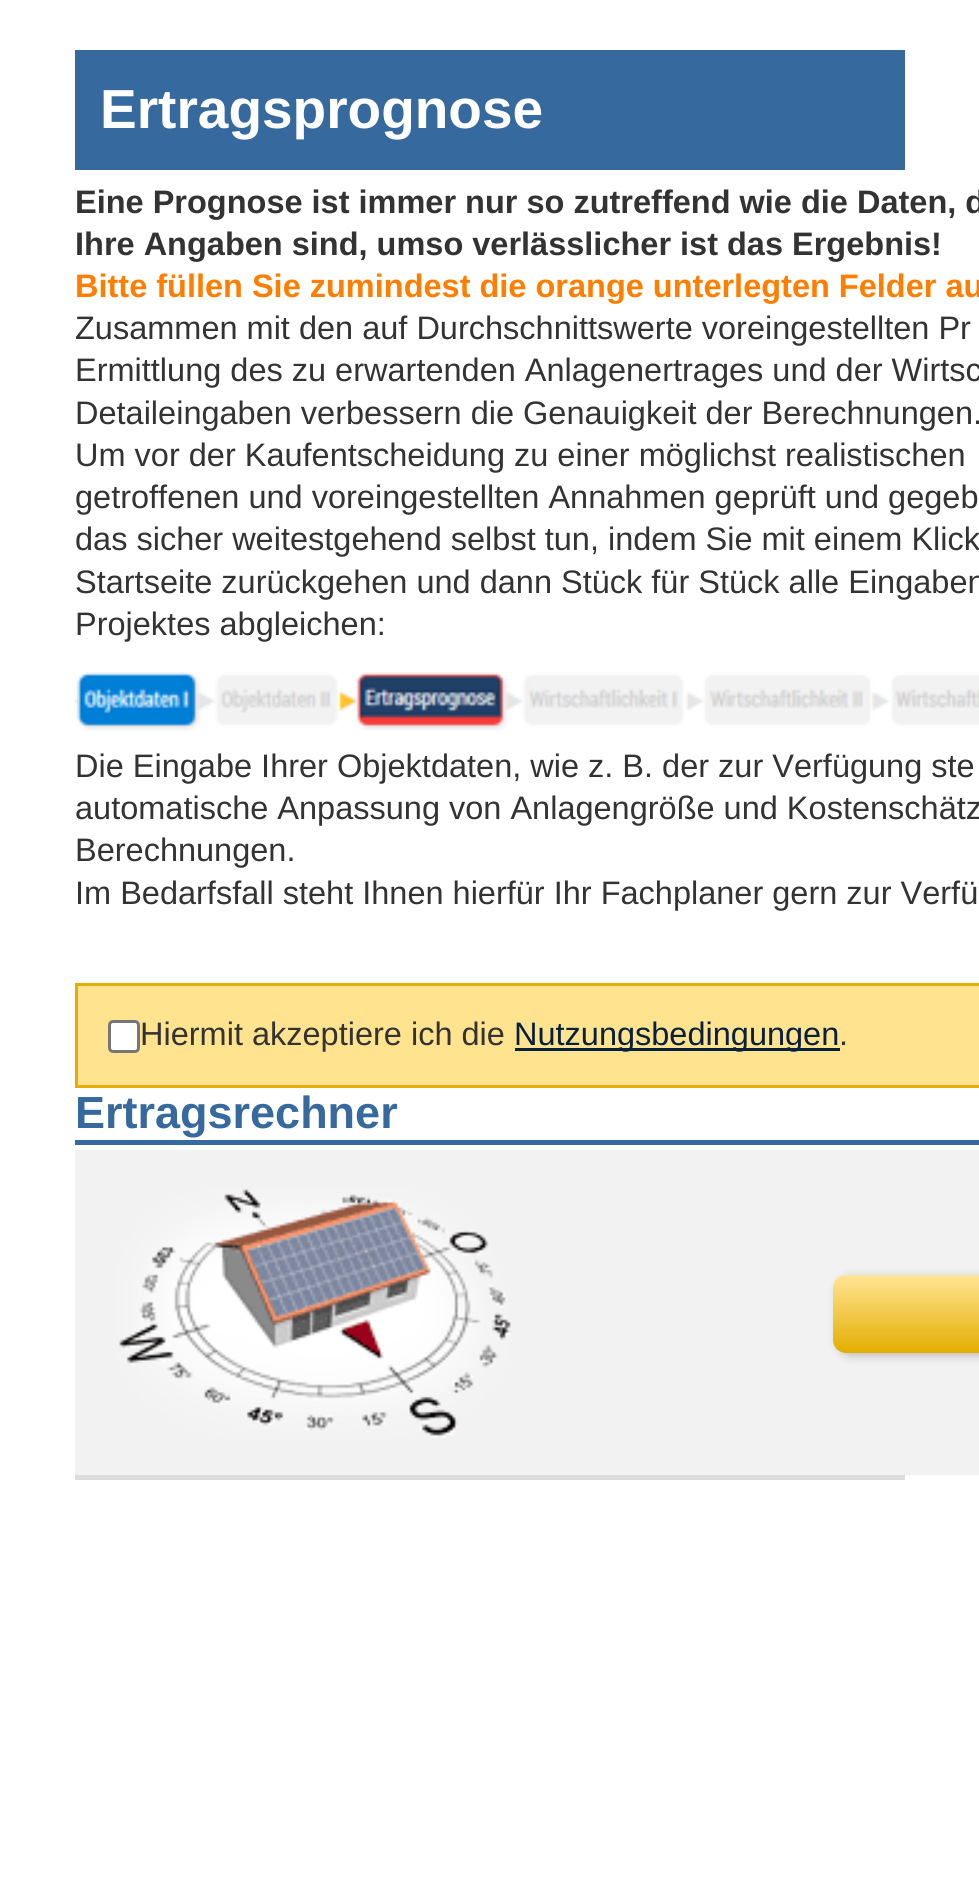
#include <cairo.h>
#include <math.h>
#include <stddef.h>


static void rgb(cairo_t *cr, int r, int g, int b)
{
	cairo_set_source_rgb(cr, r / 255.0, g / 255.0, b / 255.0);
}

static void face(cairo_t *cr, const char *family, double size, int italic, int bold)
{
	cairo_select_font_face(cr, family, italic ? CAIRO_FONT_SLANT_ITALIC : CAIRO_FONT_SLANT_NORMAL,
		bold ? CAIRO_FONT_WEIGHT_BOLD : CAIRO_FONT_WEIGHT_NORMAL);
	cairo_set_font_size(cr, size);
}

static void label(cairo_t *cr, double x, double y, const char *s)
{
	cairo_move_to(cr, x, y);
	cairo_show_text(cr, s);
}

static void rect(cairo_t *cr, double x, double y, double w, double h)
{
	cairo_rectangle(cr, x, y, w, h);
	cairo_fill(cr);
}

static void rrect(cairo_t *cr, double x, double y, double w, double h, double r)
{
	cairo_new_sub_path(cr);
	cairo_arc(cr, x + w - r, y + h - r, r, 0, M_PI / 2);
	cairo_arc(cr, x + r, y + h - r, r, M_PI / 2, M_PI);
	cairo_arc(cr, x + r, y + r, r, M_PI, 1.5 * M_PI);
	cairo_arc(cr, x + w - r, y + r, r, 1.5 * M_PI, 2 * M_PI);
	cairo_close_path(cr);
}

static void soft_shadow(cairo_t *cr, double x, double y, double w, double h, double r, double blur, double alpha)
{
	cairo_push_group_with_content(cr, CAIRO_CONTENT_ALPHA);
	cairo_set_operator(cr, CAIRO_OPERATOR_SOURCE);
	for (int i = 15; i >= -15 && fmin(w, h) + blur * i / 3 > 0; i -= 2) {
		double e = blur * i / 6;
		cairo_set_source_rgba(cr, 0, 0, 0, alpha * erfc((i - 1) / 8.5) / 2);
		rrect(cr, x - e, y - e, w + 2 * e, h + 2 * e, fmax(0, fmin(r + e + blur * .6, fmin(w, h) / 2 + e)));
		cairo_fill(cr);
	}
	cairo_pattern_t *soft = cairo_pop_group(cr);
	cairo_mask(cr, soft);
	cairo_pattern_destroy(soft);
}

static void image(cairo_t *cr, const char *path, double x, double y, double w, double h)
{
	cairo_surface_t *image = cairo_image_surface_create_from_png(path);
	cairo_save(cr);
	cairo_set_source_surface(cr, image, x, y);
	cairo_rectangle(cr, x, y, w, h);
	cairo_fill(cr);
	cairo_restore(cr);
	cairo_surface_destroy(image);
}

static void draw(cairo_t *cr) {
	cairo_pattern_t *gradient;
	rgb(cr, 255, 255, 255);
	cairo_paint(cr);
	rgb(cr, 54, 105, 157);
	rect(cr, 75, 50, 830, 120);
	face(cr, "Liberation Sans", 55, 0, 1);
	rgb(cr, 255, 255, 255);
	label(cr, 100, 128, "Ertragsprognose");
	face(cr, "Liberation Sans", 32.5, 0, 1);
	rgb(cr, 51, 51, 51);
	label(cr, 75, 213, "Eine Prognose ist immer nur so zutreffend wie die Daten, d");
	label(cr, 75, 255, "Ihre Angaben sind, umso verlässlicher ist das Ergebnis!");
	rgb(cr, 255, 126, 0);
	label(cr, 75, 297, "Bitte füllen Sie zumindest die orange unterlegten Felder au");
	face(cr, "Liberation Sans", 32.5, 0, 0);
	rgb(cr, 51, 51, 51);
	label(cr, 75, 339, "Zusammen mit den auf Durchschnittswerte voreingestellten Pr");
	label(cr, 75, 381, "Ermittlung des zu erwartenden Anlagenertrages und der Wirtsc");
	label(cr, 75, 424, "Detaileingaben verbessern die Genauigkeit der Berechnungen.");
	label(cr, 75, 466, "Um vor der Kaufentscheidung zu einer möglichst realistischen");
	label(cr, 75, 508, "getroffenen und voreingestellten Annahmen geprüft und gegeb");
	label(cr, 75, 550, "das sicher weitestgehend selbst tun, indem Sie mit einem Klick");
	label(cr, 75, 593, "Startseite zurückgehen und dann Stück für Stück alle Eingaben");
	label(cr, 75, 635, "Projektes abgleichen:");
	image(cr, "image0.png", 75, 672, 904, 59);
	label(cr, 75, 777, "Die Eingabe Ihrer Objektdaten, wie z. B. der zur Verfügung ste");
	label(cr, 75, 819, "automatische Anpassung von Anlagengröße und Kostenschätz");
	label(cr, 75, 861, "Berechnungen.");
	label(cr, 75, 904, "Im Bedarfsfall steht Ihnen hierfür Ihr Fachplaner gern zur Verfü");
	rgb(cr, 255, 227, 142);
	cairo_rectangle(cr, 76.5, 984.5, 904, 102);
	cairo_fill_preserve(cr);
	rgb(cr, 228, 173, 0);
	cairo_set_line_width(cr, 3);
	cairo_stroke(cr);
	rgb(cr, 255, 255, 255);
	rrect(cr, 109.5, 1021.5, 29, 30, 3.5);
	cairo_fill_preserve(cr);
	rgb(cr, 118, 118, 118);
	cairo_stroke(cr);
	rgb(cr, 51, 51, 51);
	label(cr, 140, 1045, "Hiermit akzeptiere ich die");
	rgb(cr, 7, 32, 63);
	rect(cr, 515, 1048, 325, 3);
	label(cr, 514, 1045, "Nutzungsbedingungen");
	rgb(cr, 51, 51, 51);
	label(cr, 839, 1045, ".");
	rgb(cr, 54, 105, 157);
	rect(cr, 75, 1140, 904, 5);
	face(cr, "Liberation Sans", 45, 0, 1);
	label(cr, 75, 1128, "Ertragsrechner");
	rgb(cr, 242, 242, 242);
	rect(cr, 75, 1150, 904, 325);
	image(cr, "image1.png", 119, 1189, 392, 249);
	rgb(cr, 0, 0, 0);
	soft_shadow(cr, 838, 1278, 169, 77, 13, 5, 0.26);
	gradient = cairo_pattern_create_linear(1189, 1275, 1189, 1353);
	cairo_pattern_add_color_stop_rgba(gradient, 0, 1, 0.898, 0.588, 1);
	cairo_pattern_add_color_stop_rgba(gradient, 1, 0.894, 0.678, 0, 1);
	cairo_set_source(cr, gradient);
	cairo_pattern_destroy(gradient);
	rrect(cr, 833, 1275, 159, 78, 13);
	cairo_fill(cr);
	rgb(cr, 221, 221, 221);
	rect(cr, 75, 1475, 830, 5);
}

int main(void) {
	cairo_surface_t *surface = cairo_image_surface_create(CAIRO_FORMAT_RGB24, 979, 1898);
	cairo_t *cr = cairo_create(surface);
	cairo_font_options_t *options = cairo_font_options_create();
	cairo_font_options_set_hint_metrics(options, CAIRO_HINT_METRICS_OFF);
	cairo_font_options_set_hint_style(options, CAIRO_HINT_STYLE_NONE);
	cairo_set_font_options(cr, options);
	cairo_set_miter_limit(cr, 4);
	draw(cr);
	cairo_surface_write_to_png(surface, "render.png");
	cairo_font_options_destroy(options);
	cairo_destroy(cr);
	cairo_surface_destroy(surface);
	return 0;
}
